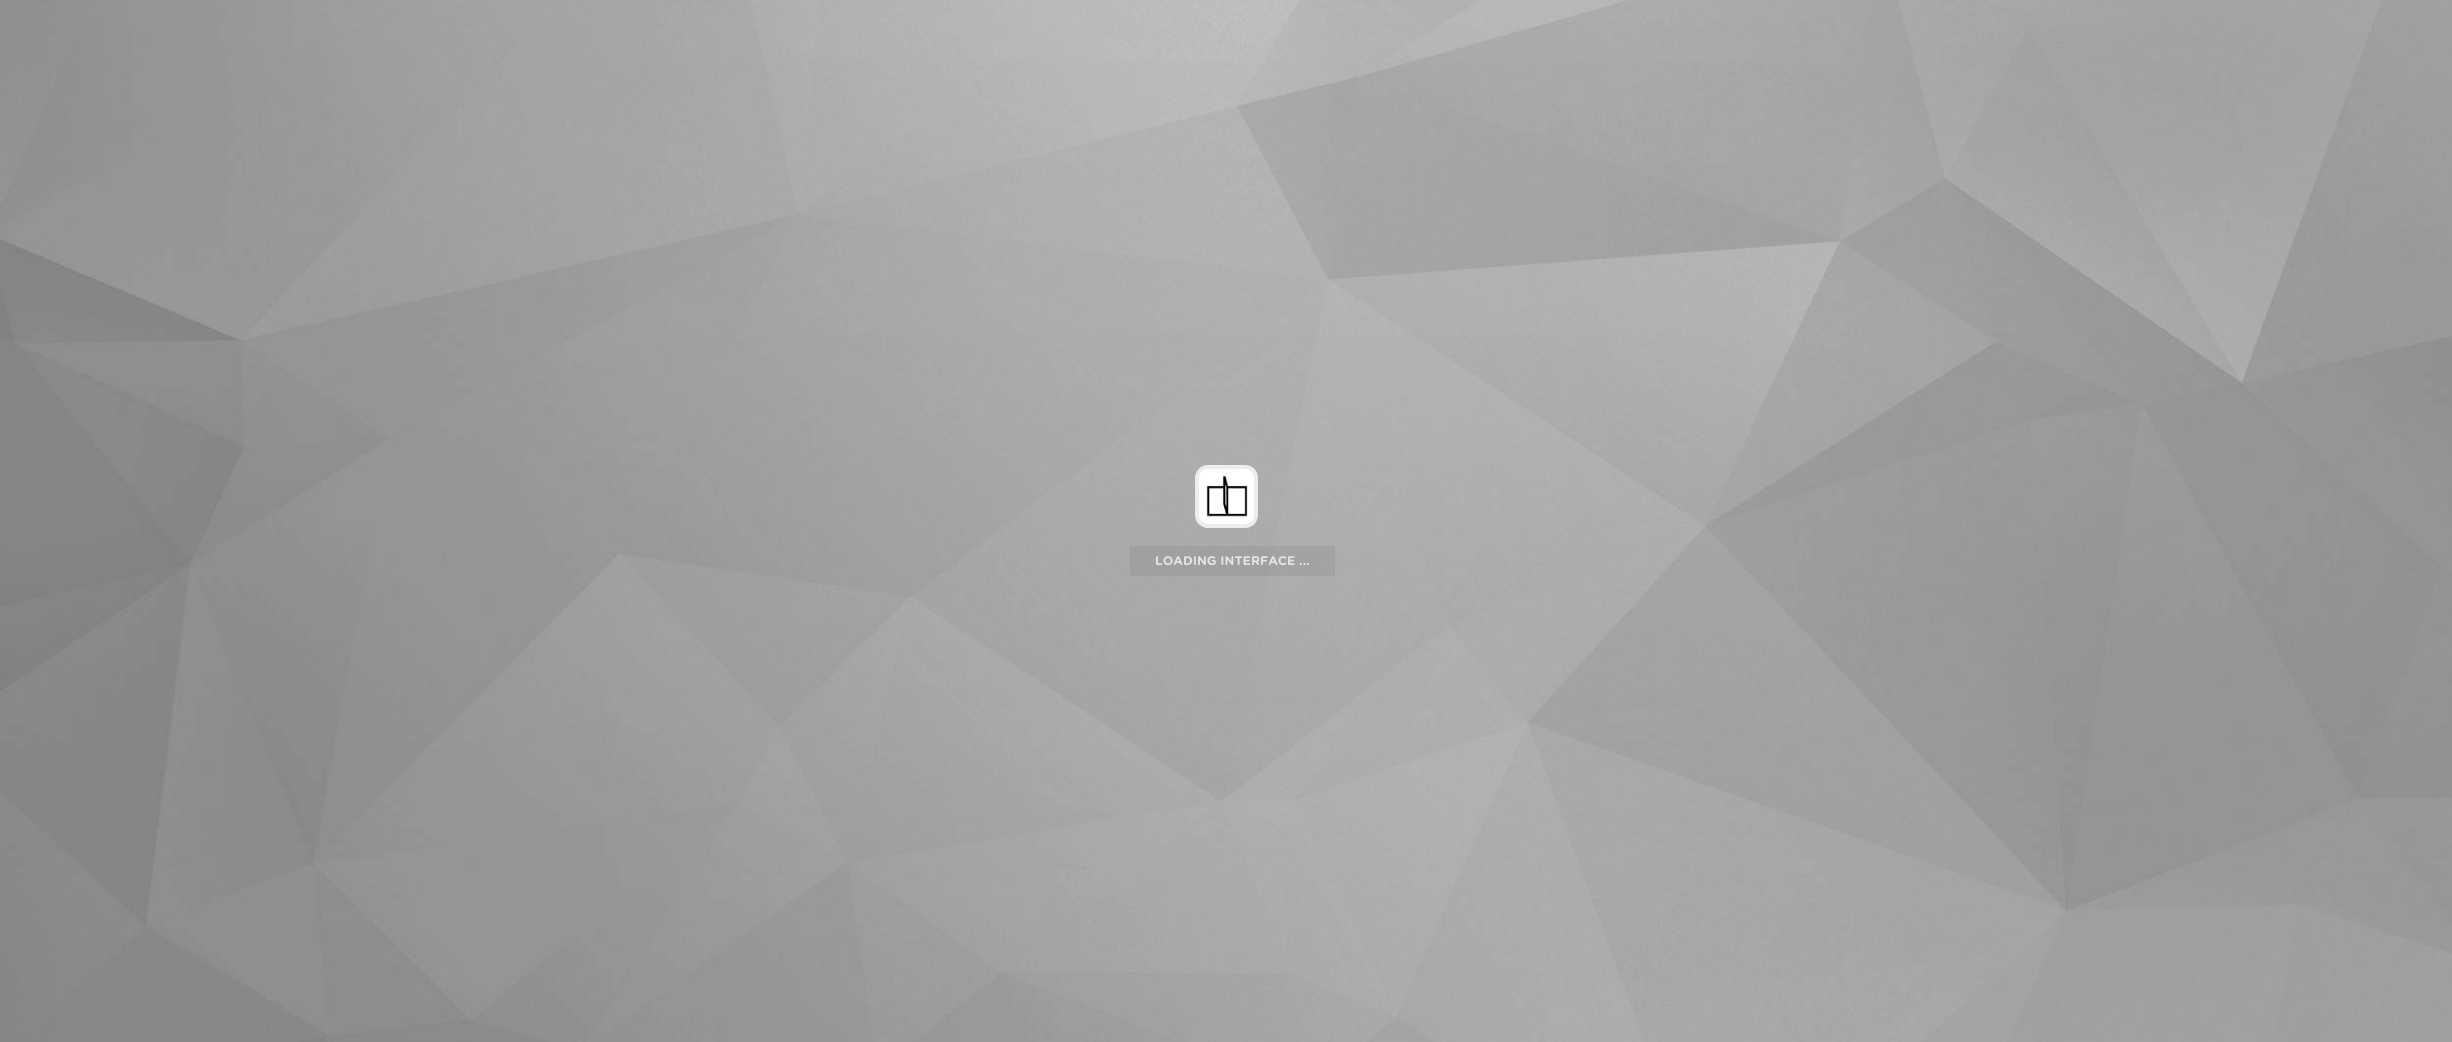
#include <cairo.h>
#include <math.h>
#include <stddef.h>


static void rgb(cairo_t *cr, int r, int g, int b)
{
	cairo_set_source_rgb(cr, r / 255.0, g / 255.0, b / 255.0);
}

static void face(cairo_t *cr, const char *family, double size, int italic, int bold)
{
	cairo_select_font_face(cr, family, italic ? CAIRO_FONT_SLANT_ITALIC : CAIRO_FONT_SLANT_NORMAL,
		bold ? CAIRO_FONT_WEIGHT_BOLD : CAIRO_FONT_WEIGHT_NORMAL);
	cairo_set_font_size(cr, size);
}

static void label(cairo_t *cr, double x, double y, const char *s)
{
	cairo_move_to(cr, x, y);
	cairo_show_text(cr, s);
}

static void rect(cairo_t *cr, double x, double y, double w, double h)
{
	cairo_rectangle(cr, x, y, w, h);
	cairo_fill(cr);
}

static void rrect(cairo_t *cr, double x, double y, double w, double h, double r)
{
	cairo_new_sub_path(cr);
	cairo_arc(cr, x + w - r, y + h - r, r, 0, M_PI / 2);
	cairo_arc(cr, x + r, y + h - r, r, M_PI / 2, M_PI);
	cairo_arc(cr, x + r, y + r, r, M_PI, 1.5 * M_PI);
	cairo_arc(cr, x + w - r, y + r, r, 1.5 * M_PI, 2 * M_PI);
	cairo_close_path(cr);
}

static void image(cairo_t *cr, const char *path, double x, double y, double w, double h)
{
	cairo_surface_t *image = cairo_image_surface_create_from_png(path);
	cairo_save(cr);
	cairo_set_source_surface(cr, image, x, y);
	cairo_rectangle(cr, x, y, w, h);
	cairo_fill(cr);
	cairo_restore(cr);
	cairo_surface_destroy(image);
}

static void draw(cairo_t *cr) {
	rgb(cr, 255, 255, 255);
	cairo_paint(cr);
	image(cr, "image0.png", 0, 0, 2452, 1042);
	rgb(cr, 255, 255, 255);
	rrect(cr, 1195, 465, 63, 63, 13);
	cairo_fill(cr);
	rrect(cr, 1197, 467, 59, 59, 11);
	cairo_set_source_rgba(cr, 0.243, 0.278, 0.31, 0.1);
	cairo_set_line_width(cr, 4);
	cairo_stroke(cr);
	image(cr, "image1.png", 1206, 475, 42, 42);
	cairo_set_source_rgba(cr, 0, 0, 0, 0.06);
	rect(cr, 1130, 546, 205, 30);
	face(cr, "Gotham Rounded", 12.5, 0, 1);
	rgb(cr, 227, 227, 227);
	label(cr, 1155, 565, "LOADING INTERFACE ...");
}

int main(void) {
	cairo_surface_t *surface = cairo_image_surface_create(CAIRO_FORMAT_RGB24, 2452, 1042);
	cairo_t *cr = cairo_create(surface);
	cairo_font_options_t *options = cairo_font_options_create();
	cairo_font_options_set_hint_metrics(options, CAIRO_HINT_METRICS_OFF);
	cairo_font_options_set_hint_style(options, CAIRO_HINT_STYLE_NONE);
	cairo_set_font_options(cr, options);
	cairo_set_miter_limit(cr, 4);
	draw(cr);
	cairo_surface_write_to_png(surface, "render.png");
	cairo_font_options_destroy(options);
	cairo_destroy(cr);
	cairo_surface_destroy(surface);
	return 0;
}
